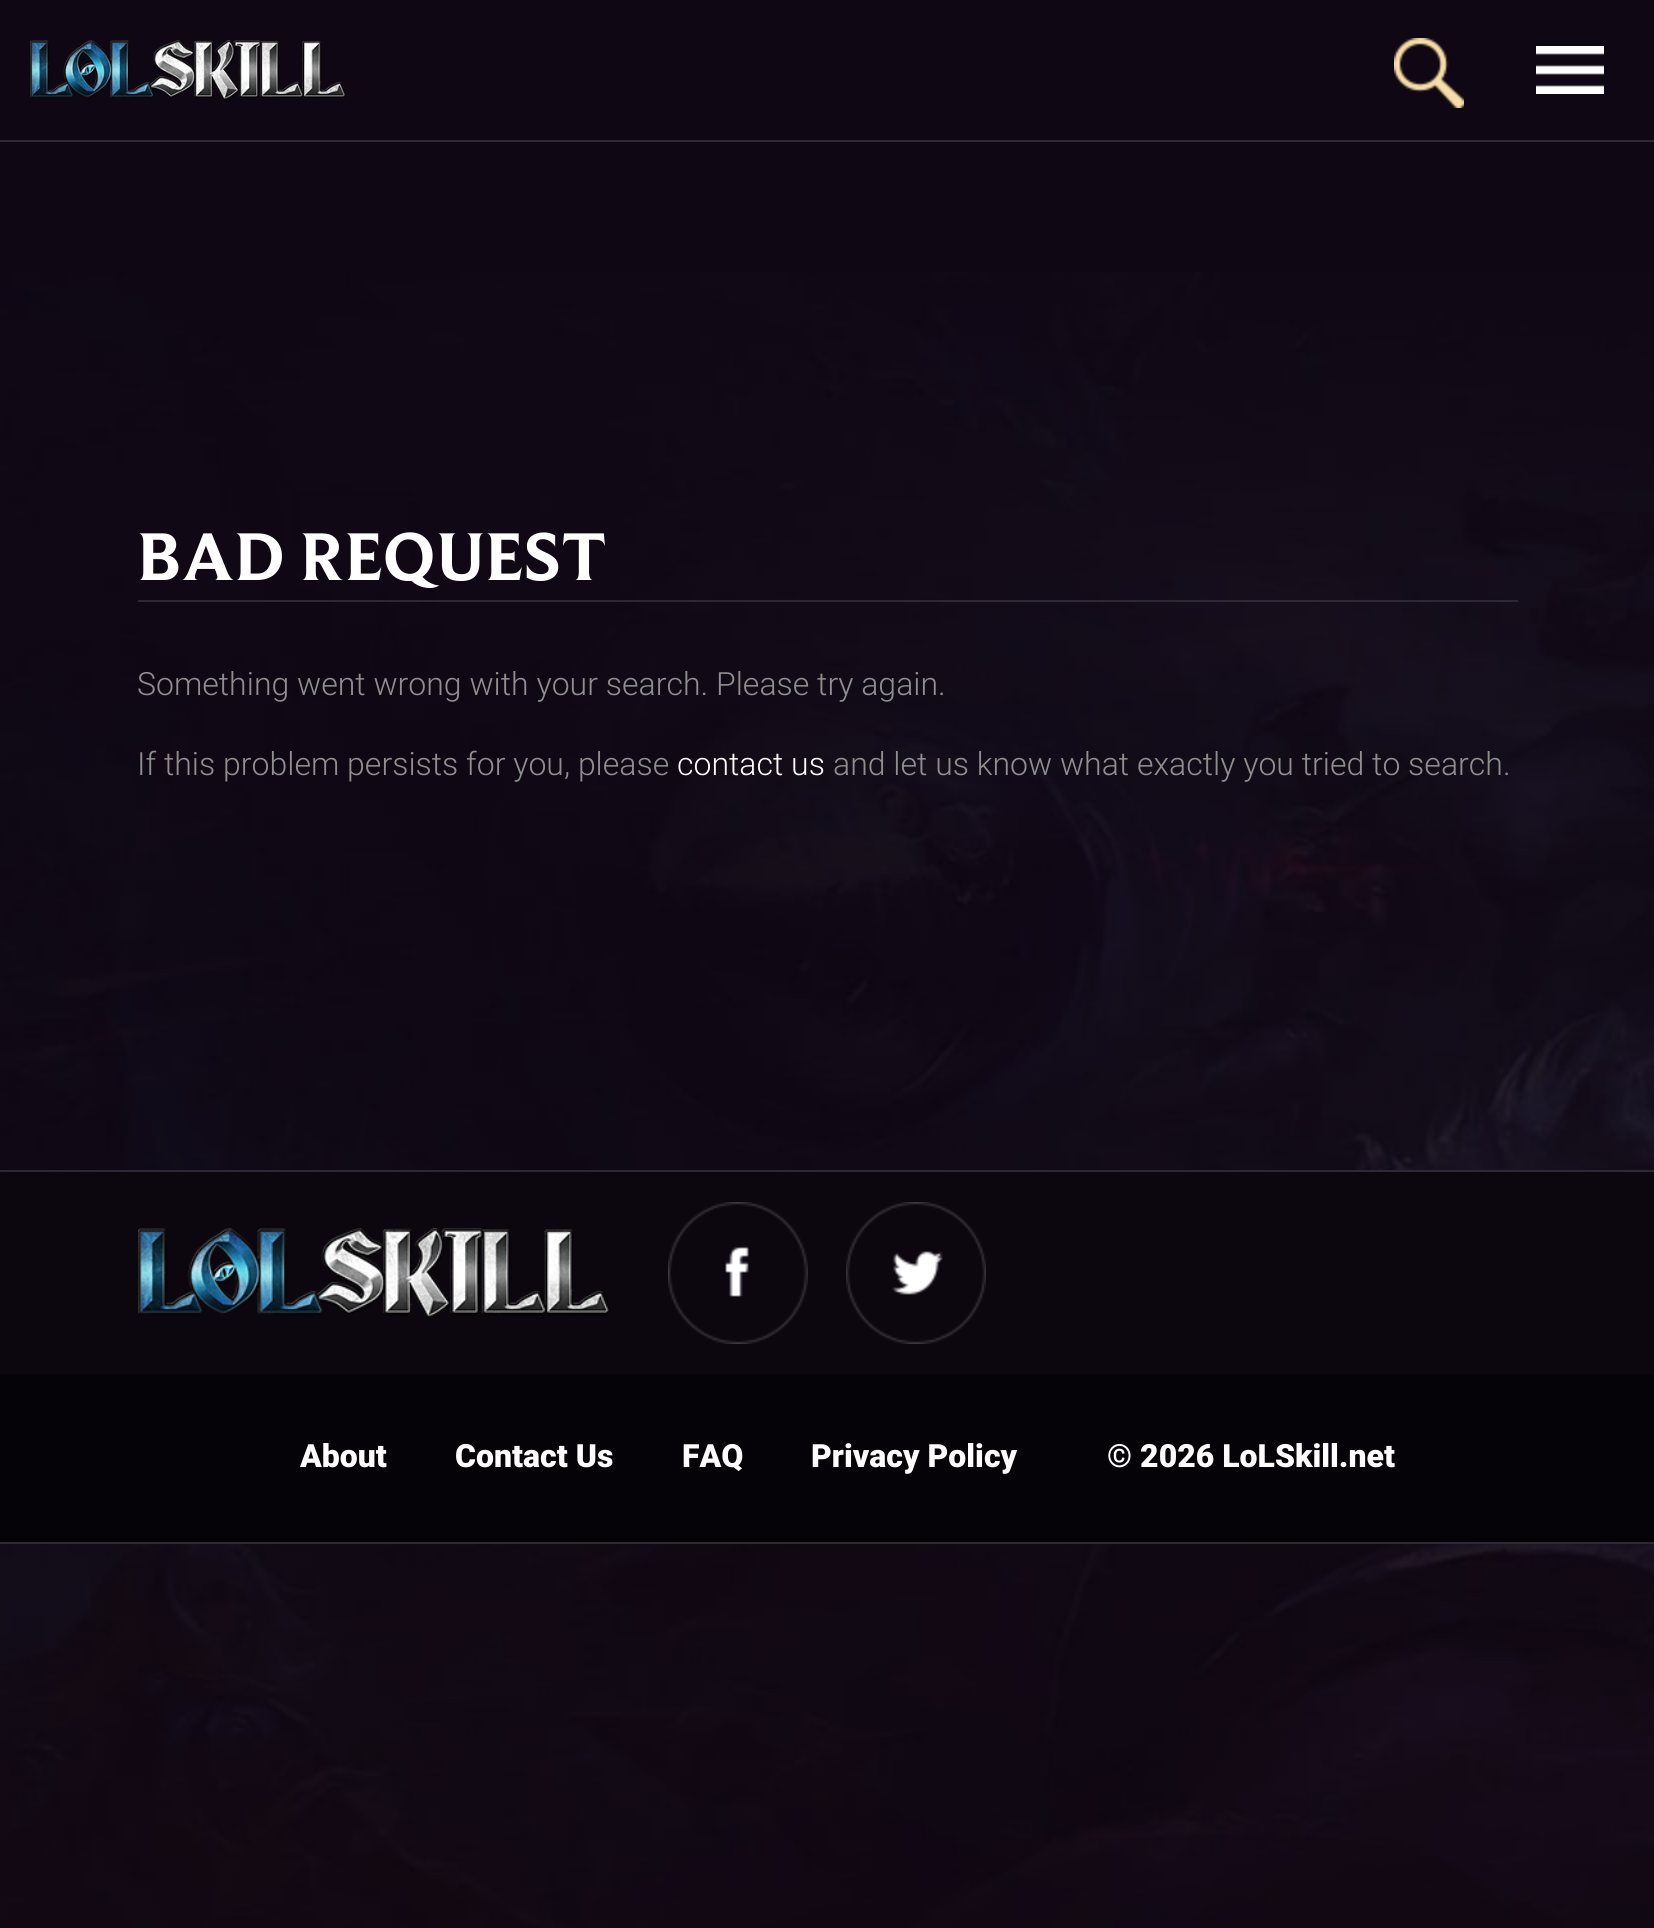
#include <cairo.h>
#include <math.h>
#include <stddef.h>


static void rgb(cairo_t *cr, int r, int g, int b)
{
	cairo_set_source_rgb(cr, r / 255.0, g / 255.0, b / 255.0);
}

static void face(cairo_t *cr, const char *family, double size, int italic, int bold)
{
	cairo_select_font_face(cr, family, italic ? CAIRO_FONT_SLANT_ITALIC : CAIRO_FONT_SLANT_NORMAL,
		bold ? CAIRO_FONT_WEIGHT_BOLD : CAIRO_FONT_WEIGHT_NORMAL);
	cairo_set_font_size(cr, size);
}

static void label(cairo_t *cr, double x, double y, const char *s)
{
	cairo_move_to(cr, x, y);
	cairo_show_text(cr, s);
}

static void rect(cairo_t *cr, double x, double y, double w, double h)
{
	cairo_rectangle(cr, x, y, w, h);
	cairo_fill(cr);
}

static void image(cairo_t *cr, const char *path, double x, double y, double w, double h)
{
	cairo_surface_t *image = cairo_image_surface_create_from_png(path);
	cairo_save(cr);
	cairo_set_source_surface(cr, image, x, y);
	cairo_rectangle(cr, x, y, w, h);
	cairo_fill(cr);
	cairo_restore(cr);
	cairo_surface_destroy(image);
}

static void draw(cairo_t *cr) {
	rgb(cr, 15, 7, 19);
	cairo_paint(cr);
	image(cr, "image0.png", 0, 272, 1654, 1656);
	rgb(cr, 46, 39, 52);
	rect(cr, 0, 140, 1654, 2);
	image(cr, "image1.png", 30, 40, 316, 60);
	image(cr, "image2.png", 1394, 38, 70, 70);
	image(cr, "image3.png", 1536, 46, 68, 48);
	rect(cr, 138, 600, 1380, 2);
	face(cr, "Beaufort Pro", 70, 0, 1);
	rgb(cr, 255, 255, 255);
	label(cr, 137, 580, "BAD REQUEST");
	face(cr, "Roboto Light", 32, 0, 0);
	rgb(cr, 143, 143, 143);
	label(cr, 137, 695, "Something went wrong with your search. Please try again.");
	label(cr, 137, 775, "If this problem persists for you, please");
	rgb(cr, 255, 255, 255);
	label(cr, 677, 775, "contact us");
	rgb(cr, 143, 143, 143);
	label(cr, 833, 775, "and let us know what exactly you tried to search.");
	rgb(cr, 46, 39, 52);
	rect(cr, 0, 1170, 1654, 2);
	rect(cr, 0, 1542, 1654, 2);
	rgb(cr, 12, 6, 15);
	rect(cr, 0, 1172, 1654, 202);
	image(cr, "image4.png", 138, 1228, 472, 90);
	image(cr, "image5.png", 668, 1202, 140, 142);
	image(cr, "image6.png", 846, 1202, 140, 142);
	rgb(cr, 6, 3, 8);
	rect(cr, 0, 1374, 1654, 168);
	face(cr, "Roboto Black", 32, 0, 0);
	rgb(cr, 255, 255, 255);
	label(cr, 300, 1467, "About");
	label(cr, 455, 1467, "Contact Us");
	label(cr, 682, 1467, "FAQ");
	label(cr, 811, 1467, "Privacy Policy");
	label(cr, 1107, 1467, "© 2026 LoLSkill.net");
}

int main(void) {
	cairo_surface_t *surface = cairo_image_surface_create(CAIRO_FORMAT_RGB24, 1654, 1928);
	cairo_t *cr = cairo_create(surface);
	cairo_font_options_t *options = cairo_font_options_create();
	cairo_font_options_set_hint_metrics(options, CAIRO_HINT_METRICS_OFF);
	cairo_font_options_set_hint_style(options, CAIRO_HINT_STYLE_NONE);
	cairo_set_font_options(cr, options);
	cairo_set_miter_limit(cr, 4);
	draw(cr);
	cairo_surface_write_to_png(surface, "render.png");
	cairo_font_options_destroy(options);
	cairo_destroy(cr);
	cairo_surface_destroy(surface);
	return 0;
}
